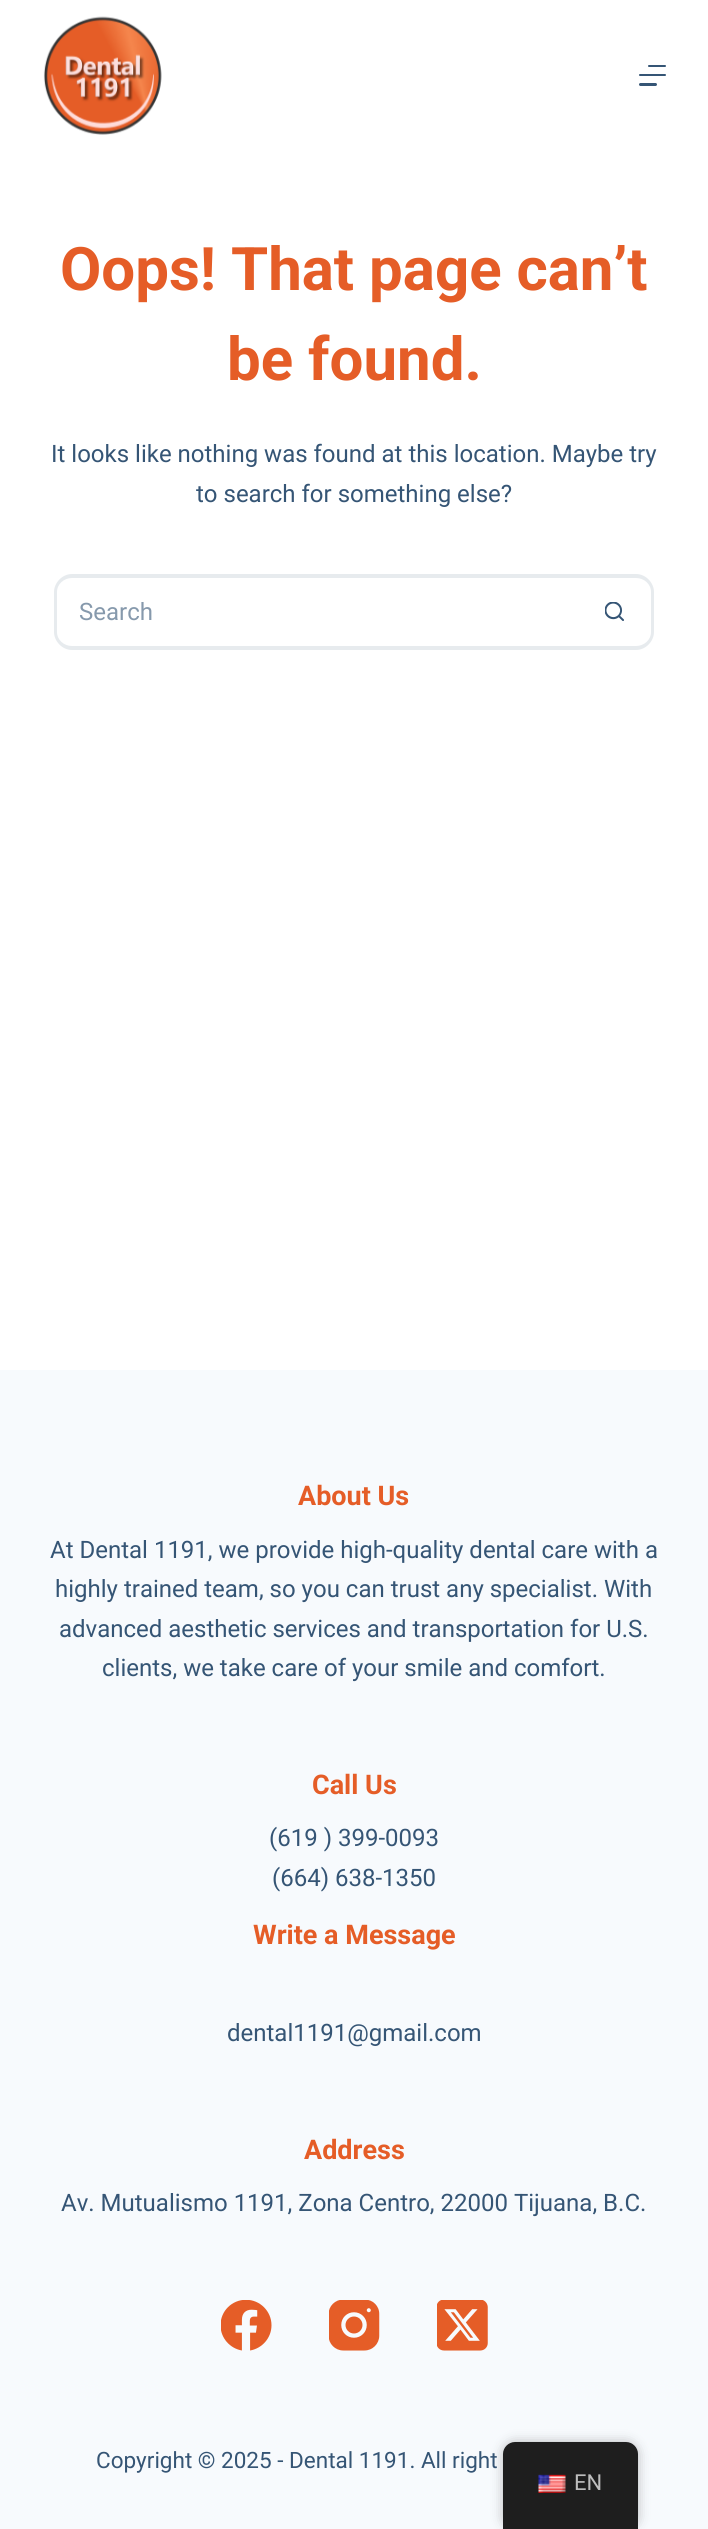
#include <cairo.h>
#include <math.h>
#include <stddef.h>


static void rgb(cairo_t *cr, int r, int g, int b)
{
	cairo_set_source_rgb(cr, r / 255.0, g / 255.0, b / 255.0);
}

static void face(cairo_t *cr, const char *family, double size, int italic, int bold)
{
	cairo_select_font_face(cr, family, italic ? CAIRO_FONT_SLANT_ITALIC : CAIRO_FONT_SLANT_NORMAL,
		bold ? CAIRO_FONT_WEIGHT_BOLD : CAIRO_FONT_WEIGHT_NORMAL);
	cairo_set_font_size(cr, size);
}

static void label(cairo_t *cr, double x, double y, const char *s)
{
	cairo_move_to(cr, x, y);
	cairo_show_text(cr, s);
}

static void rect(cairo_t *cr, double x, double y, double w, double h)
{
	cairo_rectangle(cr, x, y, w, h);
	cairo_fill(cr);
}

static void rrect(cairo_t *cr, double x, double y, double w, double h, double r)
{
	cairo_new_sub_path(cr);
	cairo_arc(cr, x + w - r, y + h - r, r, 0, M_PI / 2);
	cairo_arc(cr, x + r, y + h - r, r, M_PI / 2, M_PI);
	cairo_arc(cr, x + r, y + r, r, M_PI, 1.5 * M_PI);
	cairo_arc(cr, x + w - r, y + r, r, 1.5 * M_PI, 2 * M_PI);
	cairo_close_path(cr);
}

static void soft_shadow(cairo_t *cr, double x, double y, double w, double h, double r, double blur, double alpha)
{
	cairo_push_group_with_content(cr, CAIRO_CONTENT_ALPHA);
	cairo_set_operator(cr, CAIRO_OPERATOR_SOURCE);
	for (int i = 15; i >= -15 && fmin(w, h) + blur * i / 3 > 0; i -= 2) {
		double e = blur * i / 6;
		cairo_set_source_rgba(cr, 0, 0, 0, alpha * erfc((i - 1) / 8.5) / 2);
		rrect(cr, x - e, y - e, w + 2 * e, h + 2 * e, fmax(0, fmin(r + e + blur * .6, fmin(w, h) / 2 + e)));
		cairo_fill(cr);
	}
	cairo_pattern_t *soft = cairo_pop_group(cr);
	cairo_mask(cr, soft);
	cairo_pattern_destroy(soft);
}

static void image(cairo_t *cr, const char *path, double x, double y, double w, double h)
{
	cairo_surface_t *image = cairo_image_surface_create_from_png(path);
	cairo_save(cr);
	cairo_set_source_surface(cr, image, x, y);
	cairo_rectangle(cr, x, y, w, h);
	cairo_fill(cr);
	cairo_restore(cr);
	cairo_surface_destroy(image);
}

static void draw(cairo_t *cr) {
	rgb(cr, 255, 255, 255);
	cairo_paint(cr);
	image(cr, "image0.png", 43, 16, 119, 119);
	rgb(cr, 53, 85, 117);
	rrect(cr, 648, 65, 18, 2, 1);
	cairo_fill(cr);
	rrect(cr, 639, 74, 27, 2, 1);
	cairo_fill(cr);
	rrect(cr, 639, 83, 18, 3, 1.5);
	cairo_fill(cr);
	face(cr, "Roboto", 60, 0, 1);
	rgb(cr, 229, 93, 39);
	label(cr, 60, 290, "Oops! That page can’t");
	label(cr, 227, 380, "be found.");
	face(cr, "Roboto", 24, 0, 0);
	rgb(cr, 53, 85, 117);
	label(cr, 51, 462, "It looks like nothing was found at this location. Maybe try");
	label(cr, 196, 502, "to search for something else?");
	rgb(cr, 231, 235, 238);
	cairo_set_fill_rule(cr, CAIRO_FILL_RULE_EVEN_ODD);
	cairo_new_path(cr);
	cairo_move_to(cr, 72, 574);
	cairo_line_to(cr, 579, 574);
	cairo_line_to(cr, 579, 650);
	cairo_line_to(cr, 72, 650);
	cairo_curve_to(cr, 62, 650, 54, 641, 54, 632);
	cairo_line_to(cr, 54, 592);
	cairo_curve_to(cr, 54, 583, 62, 574, 72, 574);
	cairo_close_path(cr);
	cairo_move_to(cr, 72, 578);
	cairo_line_to(cr, 579, 578);
	cairo_line_to(cr, 579, 646);
	cairo_line_to(cr, 72, 646);
	cairo_curve_to(cr, 64, 646, 57, 640, 57, 632);
	cairo_line_to(cr, 57, 592);
	cairo_curve_to(cr, 57, 584, 64, 578, 72, 578);
	cairo_close_path(cr);
	cairo_fill(cr);
	rgb(cr, 134, 153, 172);
	label(cr, 79, 620, "Search");
	rgb(cr, 231, 235, 238);
	cairo_new_path(cr);
	cairo_move_to(cr, 579, 574);
	cairo_line_to(cr, 636, 574);
	cairo_curve_to(cr, 646, 574, 654, 583, 654, 592);
	cairo_line_to(cr, 654, 632);
	cairo_curve_to(cr, 654, 641, 646, 650, 636, 650);
	cairo_line_to(cr, 579, 650);
	cairo_close_path(cr);
	cairo_move_to(cr, 579, 578);
	cairo_line_to(cr, 636, 578);
	cairo_curve_to(cr, 644, 578, 651, 584, 651, 592);
	cairo_line_to(cr, 651, 632);
	cairo_curve_to(cr, 651, 640, 644, 646, 636, 646);
	cairo_line_to(cr, 579, 646);
	cairo_close_path(cr);
	cairo_fill(cr);
	image(cr, "image1.png", 605, 602, 19, 19);
	rgb(cr, 247, 250, 253);
	rect(cr, 0, 1370, 708, 1159);
	face(cr, "Roboto", 27, 0, 1);
	rgb(cr, 229, 93, 39);
	label(cr, 298, 1505, "About Us");
	face(cr, "Roboto", 24, 0, 0);
	rgb(cr, 53, 85, 117);
	label(cr, 50, 1558, "At Dental 1191, we provide high-quality dental care with a");
	label(cr, 55, 1597, "highly trained team, so you can trust any specialist. With");
	label(cr, 59, 1637, "advanced aesthetic services and transportation for U.S.");
	label(cr, 102, 1676, "clients, we take care of your smile and comfort.");
	face(cr, "Roboto", 27, 0, 1);
	rgb(cr, 229, 93, 39);
	label(cr, 312, 1794, "Call Us");
	face(cr, "Roboto", 24, 0, 0);
	rgb(cr, 53, 85, 117);
	label(cr, 269, 1846, "(619 ) 399-0093");
	label(cr, 272, 1886, "(664) 638-1350");
	face(cr, "Roboto", 27, 0, 1);
	rgb(cr, 229, 93, 39);
	label(cr, 253, 1944, "Write a Message");
	face(cr, "Roboto", 24, 0, 0);
	rgb(cr, 53, 85, 117);
	label(cr, 227, 2041, "dental1191@gmail.com");
	face(cr, "Roboto", 27, 0, 1);
	rgb(cr, 229, 93, 39);
	label(cr, 304, 2159, "Address");
	face(cr, "Roboto", 24, 0, 0);
	rgb(cr, 53, 85, 117);
	label(cr, 61, 2211, "Av. Mutualismo 1191, Zona Centro, 22000 Tijuana, B.C.");
	image(cr, "image2.png", 221, 2300, 51, 51);
	image(cr, "image3.png", 329, 2300, 51, 51);
	image(cr, "image4.png", 437, 2300, 51, 51);
	face(cr, "Roboto", 22.5, 0, 0);
	label(cr, 96, 2468, "Copyright © 2025 - Dental 1191. All right");
	rgb(cr, 0, 0, 0);
	soft_shadow(cr, 503, 2442, 135, 87, 12, 6, 0.25);
	rgb(cr, 30, 30, 30);
	cairo_new_path(cr);
	cairo_move_to(cr, 515, 2442);
	cairo_line_to(cr, 626, 2442);
	cairo_curve_to(cr, 632.5, 2442, 638, 2447.5, 638, 2454);
	cairo_line_to(cr, 638, 2529);
	cairo_line_to(cr, 503, 2529);
	cairo_line_to(cr, 503, 2454);
	cairo_curve_to(cr, 503, 2447.5, 508.5, 2442, 515, 2442);
	cairo_close_path(cr);
	cairo_fill(cr);
	image(cr, "image5.png", 538, 2474, 28, 19);
	face(cr, "Roboto", 22, 0, 0);
	rgb(cr, 189, 189, 189);
	label(cr, 574, 2490, "EN");
}

int main(void) {
	cairo_surface_t *surface = cairo_image_surface_create(CAIRO_FORMAT_RGB24, 708, 2529);
	cairo_t *cr = cairo_create(surface);
	cairo_font_options_t *options = cairo_font_options_create();
	cairo_font_options_set_hint_metrics(options, CAIRO_HINT_METRICS_OFF);
	cairo_font_options_set_hint_style(options, CAIRO_HINT_STYLE_NONE);
	cairo_set_font_options(cr, options);
	cairo_set_miter_limit(cr, 4);
	draw(cr);
	cairo_surface_write_to_png(surface, "render.png");
	cairo_font_options_destroy(options);
	cairo_destroy(cr);
	cairo_surface_destroy(surface);
	return 0;
}
